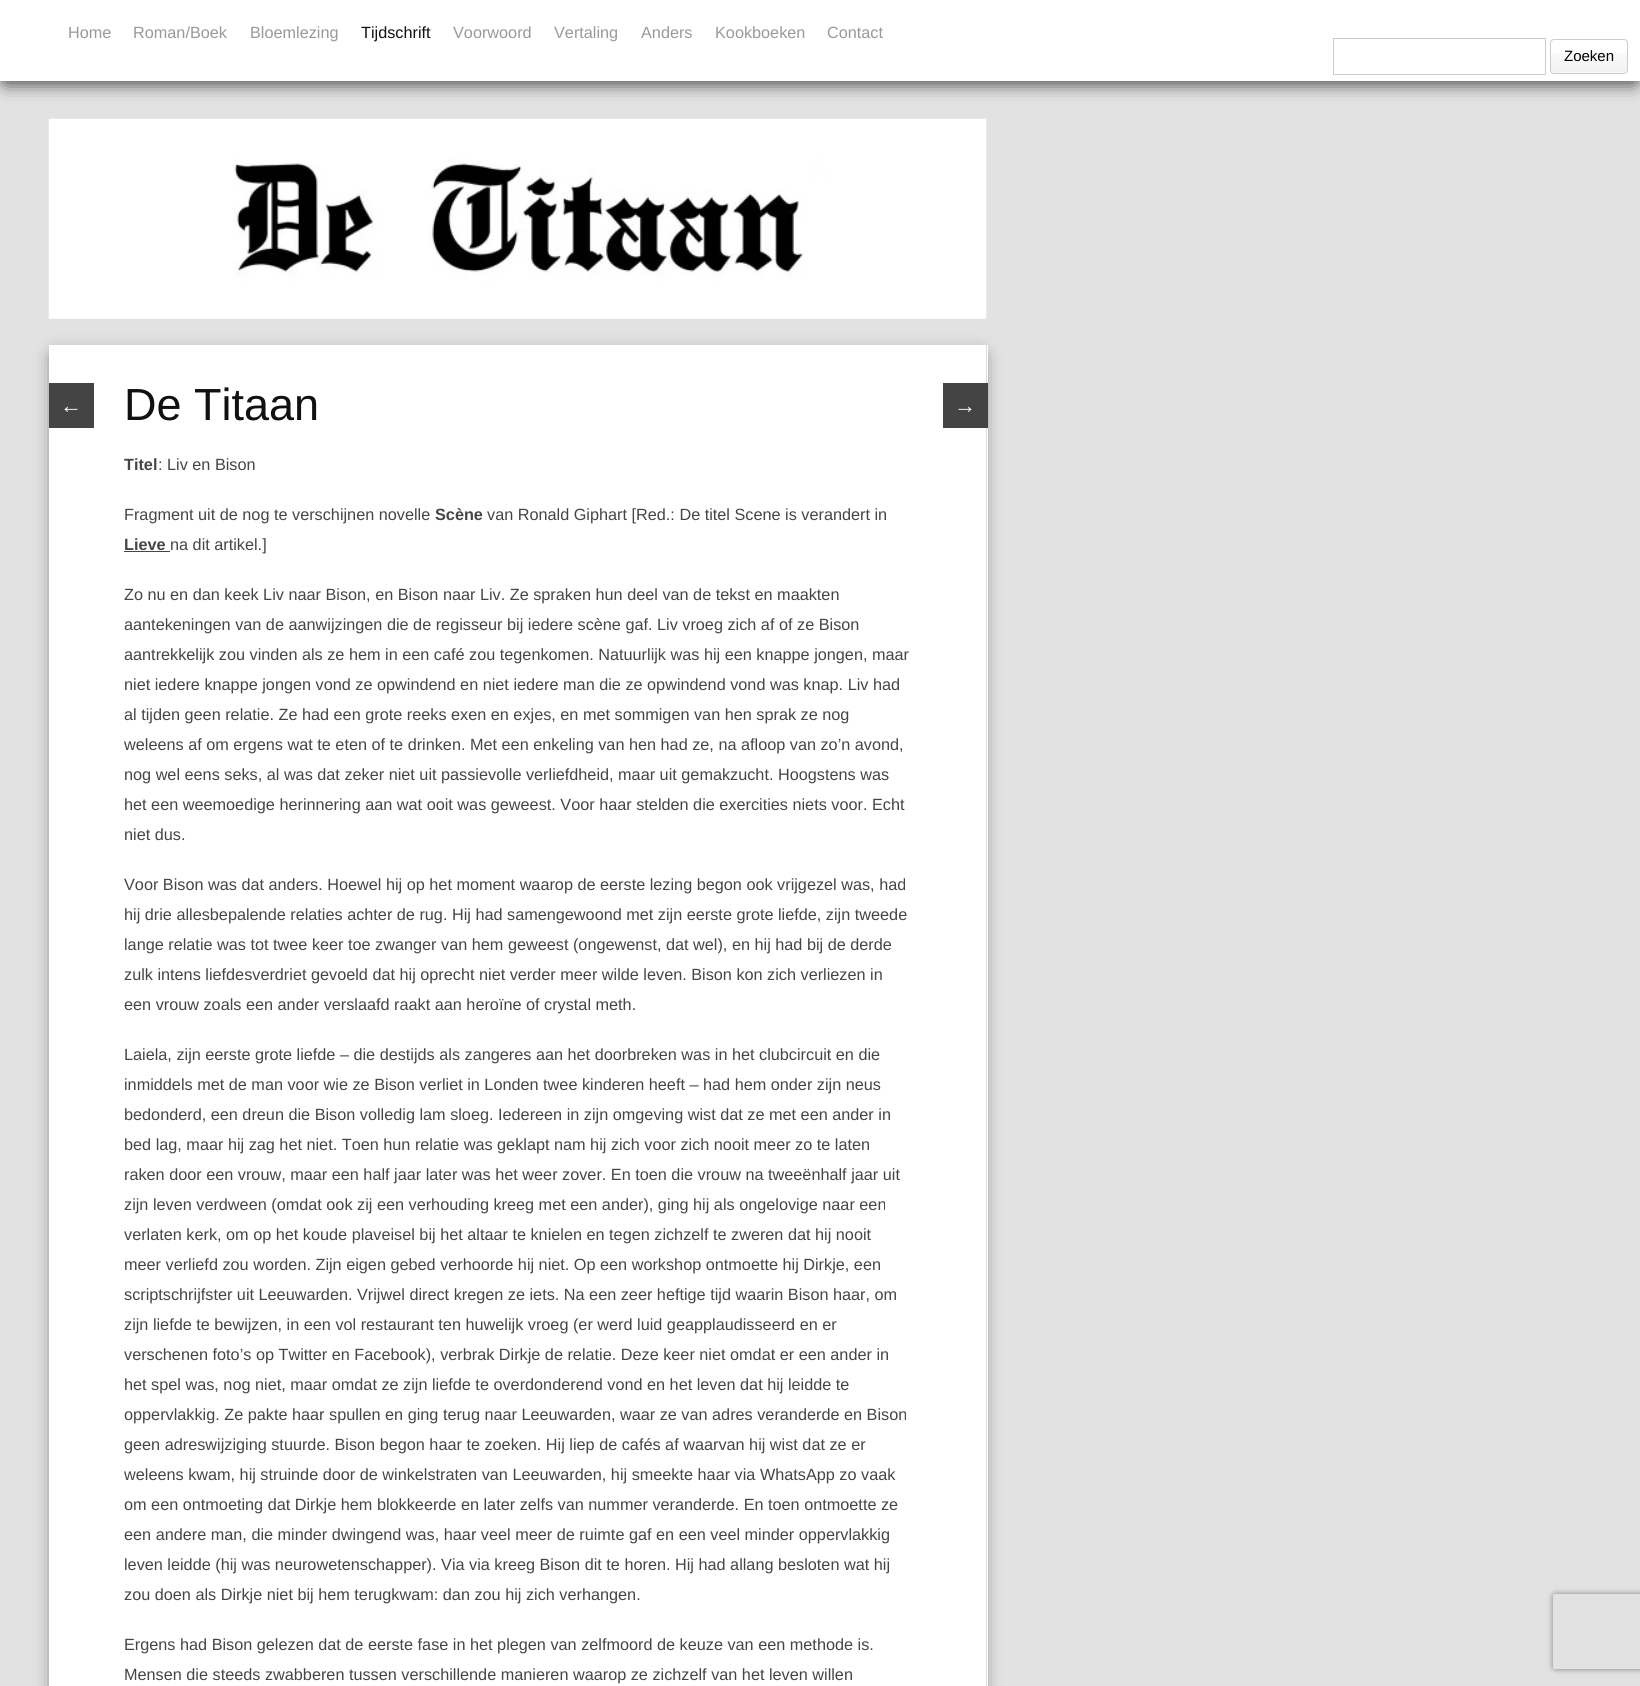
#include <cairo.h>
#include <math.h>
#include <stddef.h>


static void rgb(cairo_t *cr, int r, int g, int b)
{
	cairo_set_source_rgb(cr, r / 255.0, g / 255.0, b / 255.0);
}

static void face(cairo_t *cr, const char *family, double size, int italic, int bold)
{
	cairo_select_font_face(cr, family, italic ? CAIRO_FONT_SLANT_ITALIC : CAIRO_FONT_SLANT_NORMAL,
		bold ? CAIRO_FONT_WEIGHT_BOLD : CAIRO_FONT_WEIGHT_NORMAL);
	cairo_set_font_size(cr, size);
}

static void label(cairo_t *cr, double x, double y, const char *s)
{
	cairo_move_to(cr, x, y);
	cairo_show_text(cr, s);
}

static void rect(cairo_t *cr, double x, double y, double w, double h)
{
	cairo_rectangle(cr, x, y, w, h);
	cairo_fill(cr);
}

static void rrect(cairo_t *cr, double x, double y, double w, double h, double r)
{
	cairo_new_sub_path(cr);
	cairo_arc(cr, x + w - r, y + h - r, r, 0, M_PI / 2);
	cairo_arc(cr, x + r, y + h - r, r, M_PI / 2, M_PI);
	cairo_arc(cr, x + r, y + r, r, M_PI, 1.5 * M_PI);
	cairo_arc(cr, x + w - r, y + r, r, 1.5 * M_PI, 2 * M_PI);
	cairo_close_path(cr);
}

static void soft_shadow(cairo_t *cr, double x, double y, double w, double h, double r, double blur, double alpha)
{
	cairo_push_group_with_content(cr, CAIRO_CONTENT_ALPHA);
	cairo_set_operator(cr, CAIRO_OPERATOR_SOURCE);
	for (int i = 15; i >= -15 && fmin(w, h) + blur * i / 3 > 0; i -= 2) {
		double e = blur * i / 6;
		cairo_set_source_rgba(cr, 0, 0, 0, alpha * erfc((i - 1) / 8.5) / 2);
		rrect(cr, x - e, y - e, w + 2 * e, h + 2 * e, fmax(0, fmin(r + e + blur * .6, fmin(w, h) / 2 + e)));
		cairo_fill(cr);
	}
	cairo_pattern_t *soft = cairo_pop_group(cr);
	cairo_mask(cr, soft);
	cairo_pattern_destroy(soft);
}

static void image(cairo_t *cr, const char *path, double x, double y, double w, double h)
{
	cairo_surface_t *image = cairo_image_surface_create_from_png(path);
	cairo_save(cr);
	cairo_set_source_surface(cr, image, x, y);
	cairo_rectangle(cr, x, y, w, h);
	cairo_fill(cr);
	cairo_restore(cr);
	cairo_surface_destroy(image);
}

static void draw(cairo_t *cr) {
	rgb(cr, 226, 226, 226);
	cairo_paint(cr);
	rgb(cr, 85, 85, 85);
	soft_shadow(cr, 6, 11, 1628, 69, 0, 9.5, 1);
	soft_shadow(cr, 6, 11, 1628, 69, 0, 9.5, 1);
	rgb(cr, 255, 255, 255);
	rect(cr, 0, 0, 1640, 81);
	face(cr, "Liberation Sans", 16.25, 0, 0);
	rgb(cr, 153, 153, 153);
	label(cr, 68, 38, "Home");
	label(cr, 133, 38, "Roman/Boek");
	label(cr, 250, 38, "Bloemlezing");
	rgb(cr, 17, 17, 17);
	label(cr, 361, 38, "Tijdschrift");
	rgb(cr, 153, 153, 153);
	label(cr, 453, 38, "Voorwoord");
	label(cr, 554, 38, "Vertaling");
	label(cr, 641, 38, "Anders");
	label(cr, 715, 38, "Kookboeken");
	label(cr, 827, 38, "Contact");
	cairo_rectangle(cr, 1333.5, 38.5, 212, 36);
	rgb(cr, 204, 204, 204);
	cairo_set_line_width(cr, 1);
	cairo_stroke(cr);
	image(cr, "image0.png", 1550, 53, 77, 20);
	rrect(cr, 1550.5, 39.5, 77, 34, 3.5);
	cairo_stroke(cr);
	face(cr, "Liberation Sans", 15, 0, 0);
	rgb(cr, 0, 0, 0);
	label(cr, 1564, 61, "Zoeken");
	image(cr, "image1.png", 48, 118, 939, 201);
	rgb(cr, 85, 85, 85);
	soft_shadow(cr, 55, 356, 926, 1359, 0, 9.5, 1);
	rgb(cr, 255, 255, 255);
	rect(cr, 49, 345, 939, 1341);
	rgb(cr, 219, 219, 219);
	rect(cr, 986, 345, 1, 1341);
	face(cr, "Liberation Sans", 45, 0, 0);
	rgb(cr, 17, 17, 17);
	label(cr, 124, 420, "De Titaan");
	face(cr, "Liberation Sans", 16.25, 0, 1);
	rgb(cr, 69, 69, 69);
	label(cr, 124, 470, "Titel");
	face(cr, "Liberation Sans", 16.25, 0, 0);
	label(cr, 158, 470, ": Liv en Bison");
	label(cr, 124, 520, "Fragment uit de nog te verschijnen novelle");
	face(cr, "Liberation Sans", 16.25, 0, 1);
	label(cr, 435, 520, "Scène");
	face(cr, "Liberation Sans", 16.25, 0, 0);
	label(cr, 487, 520, "van Ronald Giphart [Red.: De titel Scene is verandert in");
	face(cr, "Liberation Sans", 16.25, 0, 1);
	label(cr, 124, 550, "Lieve");
	rgb(cr, 68, 68, 68);
	rect(cr, 124, 551, 46, 1);
	face(cr, "Liberation Sans", 16.25, 0, 0);
	rgb(cr, 69, 69, 69);
	label(cr, 170, 550, "na dit artikel.]");
	label(cr, 124, 600, "Zo nu en dan keek Liv naar Bison, en Bison naar Liv. Ze spraken hun deel van de tekst en maakten");
	label(cr, 124, 630, "aantekeningen van de aanwijzingen die de regisseur bij iedere scène gaf. Liv vroeg zich af of ze Bison");
	label(cr, 124, 660, "aantrekkelijk zou vinden als ze hem in een café zou tegenkomen. Natuurlijk was hij een knappe jongen, maar");
	label(cr, 124, 690, "niet iedere knappe jongen vond ze opwindend en niet iedere man die ze opwindend vond was knap. Liv had");
	label(cr, 124, 720, "al tijden geen relatie. Ze had een grote reeks exen en exjes, en met sommigen van hen sprak ze nog");
	label(cr, 124, 750, "weleens af om ergens wat te eten of te drinken. Met een enkeling van hen had ze, na afloop van zo’n avond,");
	label(cr, 124, 780, "nog wel eens seks, al was dat zeker niet uit passievolle verliefdheid, maar uit gemakzucht. Hoogstens was");
	label(cr, 124, 810, "het een weemoedige herinnering aan wat ooit was geweest. Voor haar stelden die exercities niets voor. Echt");
	label(cr, 124, 840, "niet dus.");
	label(cr, 124, 890, "Voor Bison was dat anders. Hoewel hij op het moment waarop de eerste lezing begon ook vrijgezel was, had");
	label(cr, 124, 920, "hij drie allesbepalende relaties achter de rug. Hij had samengewoond met zijn eerste grote liefde, zijn tweede");
	label(cr, 124, 950, "lange relatie was tot twee keer toe zwanger van hem geweest (ongewenst, dat wel), en hij had bij de derde");
	label(cr, 124, 980, "zulk intens liefdesverdriet gevoeld dat hij oprecht niet verder meer wilde leven. Bison kon zich verliezen in");
	label(cr, 124, 1010, "een vrouw zoals een ander verslaafd raakt aan heroïne of crystal meth.");
	label(cr, 124, 1060, "Laiela, zijn eerste grote liefde – die destijds als zangeres aan het doorbreken was in het clubcircuit en die");
	label(cr, 124, 1090, "inmiddels met de man voor wie ze Bison verliet in Londen twee kinderen heeft – had hem onder zijn neus");
	label(cr, 124, 1120, "bedonderd, een dreun die Bison volledig lam sloeg. Iedereen in zijn omgeving wist dat ze met een ander in");
	label(cr, 124, 1150, "bed lag, maar hij zag het niet. Toen hun relatie was geklapt nam hij zich voor zich nooit meer zo te laten");
	label(cr, 124, 1180, "raken door een vrouw, maar een half jaar later was het weer zover. En toen die vrouw na tweeënhalf jaar uit");
	label(cr, 124, 1210, "zijn leven verdween (omdat ook zij een verhouding kreeg met een ander), ging hij als ongelovige naar een");
	label(cr, 124, 1240, "verlaten kerk, om op het koude plaveisel bij het altaar te knielen en tegen zichzelf te zweren dat hij nooit");
	label(cr, 124, 1270, "meer verliefd zou worden. Zijn eigen gebed verhoorde hij niet. Op een workshop ontmoette hij Dirkje, een");
	label(cr, 124, 1300, "scriptschrijfster uit Leeuwarden. Vrijwel direct kregen ze iets. Na een zeer heftige tijd waarin Bison haar, om");
	label(cr, 124, 1330, "zijn liefde te bewijzen, in een vol restaurant ten huwelijk vroeg (er werd luid geapplaudisseerd en er");
	label(cr, 124, 1360, "verschenen foto’s op Twitter en Facebook), verbrak Dirkje de relatie. Deze keer niet omdat er een ander in");
	label(cr, 124, 1390, "het spel was, nog niet, maar omdat ze zijn liefde te overdonderend vond en het leven dat hij leidde te");
	label(cr, 124, 1420, "oppervlakkig. Ze pakte haar spullen en ging terug naar Leeuwarden, waar ze van adres veranderde en Bison");
	label(cr, 124, 1450, "geen adreswijziging stuurde. Bison begon haar te zoeken. Hij liep de cafés af waarvan hij wist dat ze er");
	label(cr, 124, 1480, "weleens kwam, hij struinde door de winkelstraten van Leeuwarden, hij smeekte haar via WhatsApp zo vaak");
	label(cr, 124, 1510, "om een ontmoeting dat Dirkje hem blokkeerde en later zelfs van nummer veranderde. En toen ontmoette ze");
	label(cr, 124, 1540, "een andere man, die minder dwingend was, haar veel meer de ruimte gaf en een veel minder oppervlakkig");
	label(cr, 124, 1570, "leven leidde (hij was neurowetenschapper). Via via kreeg Bison dit te horen. Hij had allang besloten wat hij");
	label(cr, 124, 1600, "zou doen als Dirkje niet bij hem terugkwam: dan zou hij zich verhangen.");
	label(cr, 124, 1650, "Ergens had Bison gelezen dat de eerste fase in het plegen van zelfmoord de keuze van een methode is.");
	label(cr, 124, 1680, "Mensen die steeds zwabberen tussen verschillende manieren waarop ze zichzelf van het leven willen");
	rgb(cr, 68, 68, 68);
	rect(cr, 49, 383, 45, 45);
	face(cr, "Liberation Sans", 22, 0, 0);
	rgb(cr, 250, 250, 250);
	label(cr, 60, 413, "←");
	rgb(cr, 68, 68, 68);
	rect(cr, 943, 383, 45, 45);
	rgb(cr, 250, 250, 250);
	label(cr, 954, 413, "→");
	cairo_save(cr);
	cairo_set_fill_rule(cr, CAIRO_FILL_RULE_EVEN_ODD);
	cairo_new_path(cr);
	cairo_move_to(cr, 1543, 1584);
	cairo_line_to(cr, 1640, 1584);
	cairo_line_to(cr, 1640, 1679);
	cairo_line_to(cr, 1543, 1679);
	cairo_close_path(cr);
	cairo_move_to(cr, 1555.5, 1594);
	cairo_line_to(cr, 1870.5, 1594);
	cairo_curve_to(cr, 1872, 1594, 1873, 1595, 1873, 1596.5);
	cairo_line_to(cr, 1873, 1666.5);
	cairo_curve_to(cr, 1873, 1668, 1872, 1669, 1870.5, 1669);
	cairo_line_to(cr, 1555.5, 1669);
	cairo_curve_to(cr, 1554, 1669, 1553, 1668, 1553, 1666.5);
	cairo_line_to(cr, 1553, 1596.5);
	cairo_curve_to(cr, 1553, 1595, 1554, 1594, 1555.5, 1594);
	cairo_close_path(cr);
	cairo_clip(cr);
	rgb(cr, 128, 128, 128);
	soft_shadow(cr, 1553, 1594, 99, 75, 2.5, 3, 1);
	cairo_restore(cr);
}

int main(void) {
	cairo_surface_t *surface = cairo_image_surface_create(CAIRO_FORMAT_RGB24, 1640, 1686);
	cairo_t *cr = cairo_create(surface);
	cairo_font_options_t *options = cairo_font_options_create();
	cairo_font_options_set_hint_metrics(options, CAIRO_HINT_METRICS_OFF);
	cairo_font_options_set_hint_style(options, CAIRO_HINT_STYLE_NONE);
	cairo_set_font_options(cr, options);
	cairo_set_miter_limit(cr, 4);
	draw(cr);
	cairo_surface_write_to_png(surface, "render.png");
	cairo_font_options_destroy(options);
	cairo_destroy(cr);
	cairo_surface_destroy(surface);
	return 0;
}
